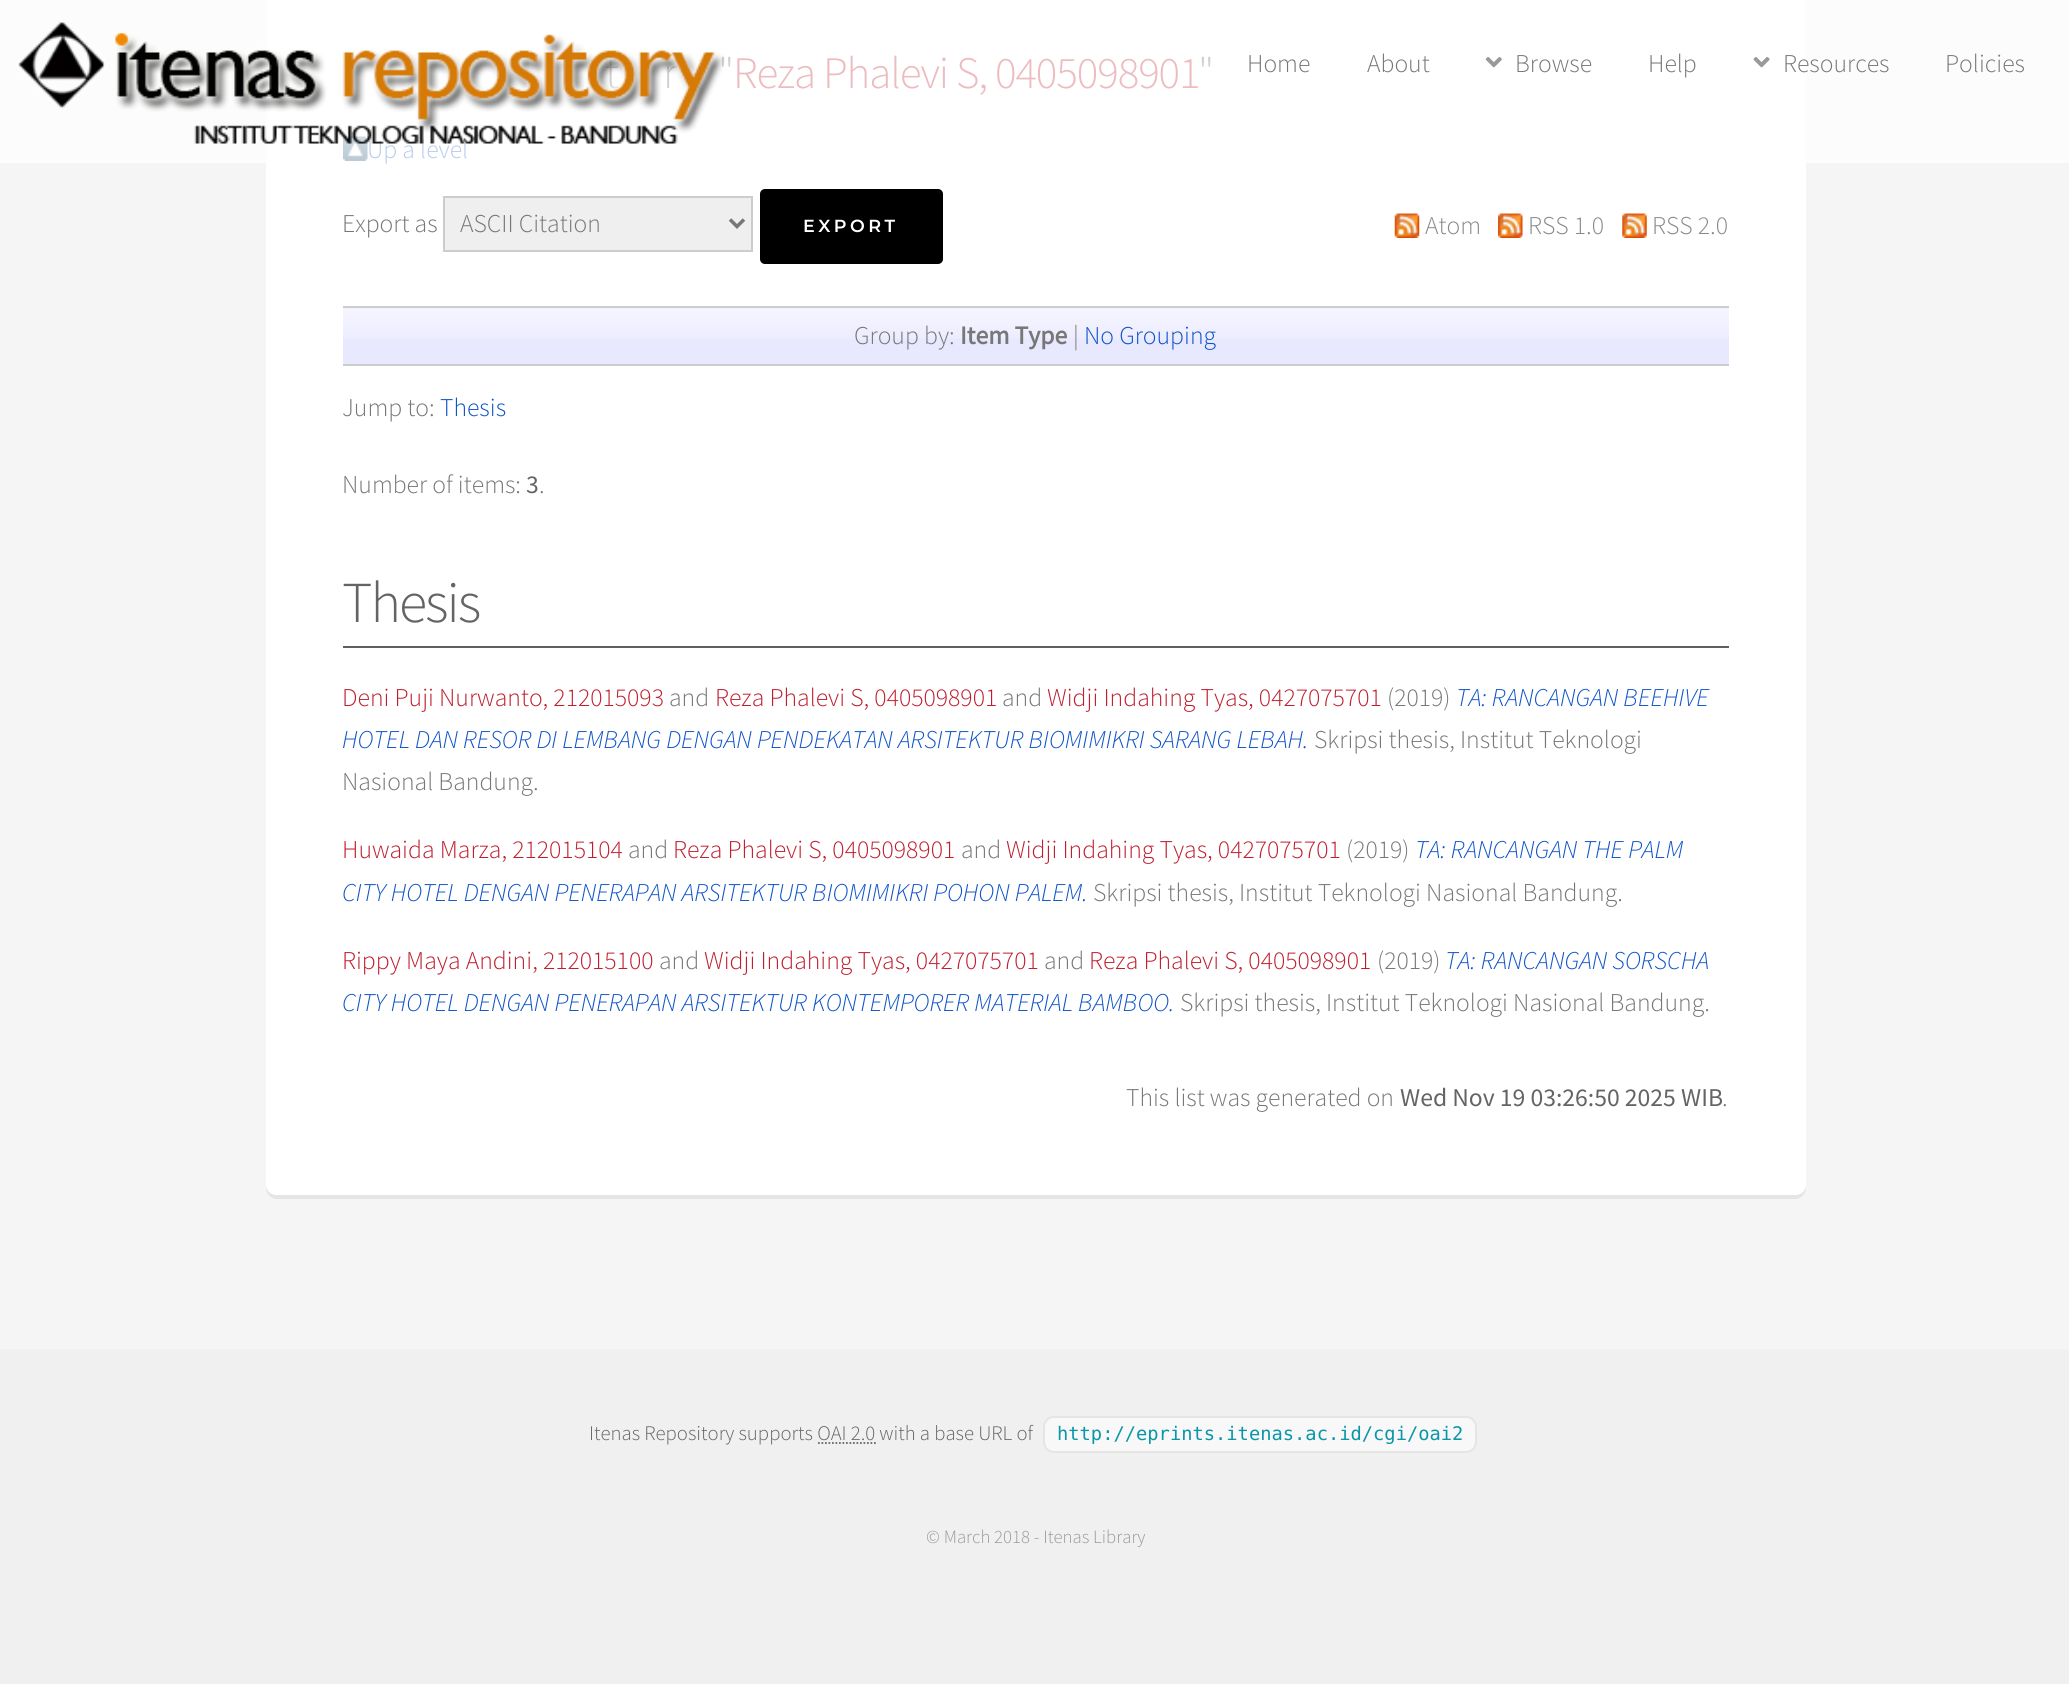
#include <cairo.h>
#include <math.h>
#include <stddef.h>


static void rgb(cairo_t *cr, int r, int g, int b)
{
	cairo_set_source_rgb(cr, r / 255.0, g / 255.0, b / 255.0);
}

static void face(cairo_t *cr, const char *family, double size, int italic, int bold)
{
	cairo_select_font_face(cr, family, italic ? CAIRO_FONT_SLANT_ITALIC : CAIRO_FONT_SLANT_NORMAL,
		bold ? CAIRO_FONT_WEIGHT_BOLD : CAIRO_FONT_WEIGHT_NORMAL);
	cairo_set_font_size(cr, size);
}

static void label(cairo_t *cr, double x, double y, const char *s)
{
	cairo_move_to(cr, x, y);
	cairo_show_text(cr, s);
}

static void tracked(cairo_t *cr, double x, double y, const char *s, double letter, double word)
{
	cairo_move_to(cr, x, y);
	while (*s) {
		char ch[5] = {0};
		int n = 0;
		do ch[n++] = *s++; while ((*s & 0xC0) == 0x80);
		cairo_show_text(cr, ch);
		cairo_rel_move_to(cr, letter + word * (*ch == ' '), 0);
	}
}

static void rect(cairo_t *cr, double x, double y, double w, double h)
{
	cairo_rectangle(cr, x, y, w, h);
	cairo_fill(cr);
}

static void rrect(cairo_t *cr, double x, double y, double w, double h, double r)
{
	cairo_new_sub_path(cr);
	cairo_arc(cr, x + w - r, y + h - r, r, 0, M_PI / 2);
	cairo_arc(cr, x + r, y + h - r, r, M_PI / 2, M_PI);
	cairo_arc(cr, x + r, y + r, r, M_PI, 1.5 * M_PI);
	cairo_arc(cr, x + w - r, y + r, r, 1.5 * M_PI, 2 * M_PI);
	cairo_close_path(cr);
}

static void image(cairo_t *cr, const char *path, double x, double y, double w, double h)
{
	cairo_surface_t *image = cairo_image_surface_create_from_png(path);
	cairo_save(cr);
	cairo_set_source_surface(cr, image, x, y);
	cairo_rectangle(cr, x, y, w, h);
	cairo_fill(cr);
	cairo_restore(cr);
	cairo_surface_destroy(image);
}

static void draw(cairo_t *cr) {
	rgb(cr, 245, 245, 245);
	cairo_paint(cr);
	rgb(cr, 252, 252, 252);
	rect(cr, 0, 0, 2069, 163);
	rgb(cr, 229, 229, 229);
	cairo_new_path(cr);
	cairo_move_to(cr, 266, 1185);
	cairo_line_to(cr, 266, 1188);
	cairo_curve_to(cr, 266, 1194, 271, 1199, 277, 1199);
	cairo_line_to(cr, 1795, 1199);
	cairo_curve_to(cr, 1801, 1199, 1806, 1194, 1806, 1188);
	cairo_line_to(cr, 1806, 1185);
	cairo_curve_to(cr, 1806, 1191, 1801, 1195, 1796, 1195);
	cairo_line_to(cr, 276, 1195);
	cairo_curve_to(cr, 271, 1195, 266, 1191, 266, 1185);
	cairo_close_path(cr);
	cairo_fill(cr);
	rgb(cr, 255, 255, 255);
	rrect(cr, 266, -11, 1540, 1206, 11);
	cairo_fill(cr);
	face(cr, "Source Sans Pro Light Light", 45, 0, 0);
	rgb(cr, 209, 209, 209);
	tracked(cr, 605, 88, "t", -1.1, 0);
	tracked(cr, 663, 88, "r", -1.1, 0);
	tracked(cr, 718, 88, "\"", -1.1, 0);
	image(cr, "image3.png", 343, 136, 25, 25);
	face(cr, "Source Sans Pro Light Light", 25.65, 0, 0);
	rgb(cr, 183, 203, 239);
	label(cr, 367, 158, "Up a level");
	image(cr, "image0.png", 18, 22, 707, 122);
	rgb(cr, 119, 119, 119);
	label(cr, 1247, 72, "Home");
	label(cr, 1367, 72, "About");
	image(cr, "image1.png", 1485, 57, 17, 11);
	label(cr, 1515, 72, "Browse");
	label(cr, 1648, 72, "Help");
	image(cr, "image2.png", 1753, 57, 17, 11);
	label(cr, 1783, 72, "Resources");
	label(cr, 1945, 72, "Policies");
	face(cr, "Source Sans Pro Light Light", 45, 0, 0);
	rgb(cr, 236, 188, 192);
	tracked(cr, 733, 88, "Reza Phalevi S, 0405098901", -1.1, 0);
	rgb(cr, 209, 209, 209);
	tracked(cr, 1198, 88, "\"", -1.1, 0);
	face(cr, "Source Sans Pro Light Light", 25.65, 0, 0);
	rgb(cr, 119, 119, 119);
	label(cr, 342, 232, "Export as");
	rgb(cr, 239, 239, 239);
	cairo_rectangle(cr, 444, 197, 308, 54);
	cairo_fill_preserve(cr);
	rgb(cr, 204, 204, 204);
	cairo_stroke(cr);
	cairo_new_path(cr);
	cairo_move_to(cr, 730, 219.5);
	cairo_line_to(cr, 737, 226.5);
	cairo_line_to(cr, 744, 219.5);
	rgb(cr, 119, 119, 119);
	cairo_set_line_width(cr, 3.5);
	cairo_stroke(cr);
	label(cr, 460, 232, "ASCII Citation");
	rgb(cr, 0, 0, 0);
	rrect(cr, 760, 189, 183, 75, 5);
	cairo_fill(cr);
	face(cr, "Montserrat SemiBold", 17.5, 0, 0);
	rgb(cr, 255, 255, 255);
	tracked(cr, 803, 232, "EXPORT", 3.5, 0);
	image(cr, "image4.png", 1394, 213, 26, 25);
	face(cr, "Source Sans Pro Light Light", 25.65, 0, 0);
	rgb(cr, 136, 136, 136);
	label(cr, 1425, 234, "Atom");
	image(cr, "image5.png", 1498, 213, 25, 25);
	label(cr, 1528, 234, "RSS 1.0");
	image(cr, "image6.png", 1622, 213, 25, 25);
	label(cr, 1652, 234, "RSS 2.0");
	rgb(cr, 232, 232, 255);
	rect(cr, 343, 308, 1386, 56);
	image(cr, "image7.png", 343, 308, 1386, 31);
	rgb(cr, 204, 204, 204);
	rect(cr, 343, 306, 1386, 2);
	rect(cr, 343, 364, 1386, 2);
	rgb(cr, 119, 119, 119);
	label(cr, 854, 344, "Group by:");
	face(cr, "Source Sans Pro", 25.65, 0, 1);
	label(cr, 960, 344, "Item Type");
	face(cr, "Source Sans Pro Light Light", 25.65, 0, 0);
	label(cr, 1073, 344, "|");
	rgb(cr, 14, 83, 200);
	label(cr, 1084, 344, "No Grouping");
	rgb(cr, 119, 119, 119);
	label(cr, 342, 416, "Jump to:");
	rgb(cr, 14, 83, 200);
	label(cr, 440, 416, "Thesis");
	rgb(cr, 119, 119, 119);
	label(cr, 342, 493, "Number of items:");
	face(cr, "Source Sans Pro", 25.65, 0, 0);
	rgb(cr, 100, 100, 100);
	label(cr, 526, 493, "3");
	face(cr, "Source Sans Pro Light Light", 25.65, 0, 0);
	rgb(cr, 119, 119, 119);
	label(cr, 539, 493, ".");
	rgb(cr, 96, 96, 96);
	rect(cr, 343, 646, 1386, 2);
	face(cr, "Source Sans Pro Light Light", 58, 0, 0);
	rgb(cr, 100, 100, 100);
	tracked(cr, 342, 622, "Thesis", -2, 0);
	face(cr, "Source Sans Pro Light Light", 25.65, 0, 0);
	rgb(cr, 191, 30, 46);
	label(cr, 342, 706, "Deni Puji Nurwanto, 212015093");
	rgb(cr, 119, 119, 119);
	label(cr, 669, 706, "and");
	rgb(cr, 191, 30, 46);
	label(cr, 715, 706, "Reza Phalevi S, 0405098901");
	rgb(cr, 119, 119, 119);
	label(cr, 1002, 706, "and");
	rgb(cr, 191, 30, 46);
	label(cr, 1047, 706, "Widji Indahing Tyas, 0427075701");
	rgb(cr, 119, 119, 119);
	label(cr, 1387, 706, "(2019)");
	face(cr, "Source Sans Pro Light Light", 25.65, 1, 0);
	rgb(cr, 14, 83, 200);
	label(cr, 1456, 706, "TA: RANCANGAN BEEHIVE");
	label(cr, 342, 748, "HOTEL DAN RESOR DI LEMBANG DENGAN PENDEKATAN ARSITEKTUR BIOMIMIKRI SARANG LEBAH.");
	face(cr, "Source Sans Pro Light Light", 25.65, 0, 0);
	rgb(cr, 119, 119, 119);
	label(cr, 1314, 748, "Skripsi thesis, Institut Teknologi");
	label(cr, 342, 790, "Nasional Bandung.");
	rgb(cr, 191, 30, 46);
	label(cr, 342, 858, "Huwaida Marza, 212015104");
	rgb(cr, 119, 119, 119);
	label(cr, 628, 858, "and");
	rgb(cr, 191, 30, 46);
	label(cr, 673, 858, "Reza Phalevi S, 0405098901");
	rgb(cr, 119, 119, 119);
	label(cr, 961, 858, "and");
	rgb(cr, 191, 30, 46);
	label(cr, 1006, 858, "Widji Indahing Tyas, 0427075701");
	rgb(cr, 119, 119, 119);
	label(cr, 1346, 858, "(2019)");
	face(cr, "Source Sans Pro Light Light", 25.65, 1, 0);
	rgb(cr, 14, 83, 200);
	label(cr, 1415, 858, "TA: RANCANGAN THE PALM");
	label(cr, 342, 901, "CITY HOTEL DENGAN PENERAPAN ARSITEKTUR BIOMIMIKRI POHON PALEM.");
	face(cr, "Source Sans Pro Light Light", 25.65, 0, 0);
	rgb(cr, 119, 119, 119);
	label(cr, 1093, 901, "Skripsi thesis, Institut Teknologi Nasional Bandung.");
	rgb(cr, 191, 30, 46);
	label(cr, 342, 969, "Rippy Maya Andini, 212015100");
	rgb(cr, 119, 119, 119);
	label(cr, 659, 969, "and");
	rgb(cr, 191, 30, 46);
	label(cr, 704, 969, "Widji Indahing Tyas, 0427075701");
	rgb(cr, 119, 119, 119);
	label(cr, 1044, 969, "and");
	rgb(cr, 191, 30, 46);
	label(cr, 1089, 969, "Reza Phalevi S, 0405098901");
	rgb(cr, 119, 119, 119);
	label(cr, 1377, 969, "(2019)");
	face(cr, "Source Sans Pro Light Light", 25.65, 1, 0);
	rgb(cr, 14, 83, 200);
	label(cr, 1445, 969, "TA: RANCANGAN SORSCHA");
	label(cr, 342, 1011, "CITY HOTEL DENGAN PENERAPAN ARSITEKTUR KONTEMPORER MATERIAL BAMBOO.");
	face(cr, "Source Sans Pro Light Light", 25.65, 0, 0);
	rgb(cr, 119, 119, 119);
	label(cr, 1180, 1011, "Skripsi thesis, Institut Teknologi Nasional Bandung.");
	label(cr, 1126, 1106, "This list was generated on");
	face(cr, "Source Sans Pro", 25.65, 0, 0);
	rgb(cr, 100, 100, 100);
	label(cr, 1400, 1106, "Wed Nov 19 03:26:50 2025 WIB");
	face(cr, "Source Sans Pro Light Light", 25.65, 0, 0);
	rgb(cr, 119, 119, 119);
	label(cr, 1722, 1106, ".");
	rgb(cr, 240, 240, 240);
	rect(cr, 0, 1349, 2069, 335);
	face(cr, "Source Sans Pro Light Light", 20.75, 0, 0);
	rgb(cr, 100, 100, 100);
	label(cr, 589, 1440, "Itenas Repository supports OAI 2.0 with a base URL of");
	rgb(cr, 248, 248, 248);
	rrect(cr, 1044, 1417, 432, 35, 10);
	cairo_fill_preserve(cr);
	rgb(cr, 229, 229, 229);
	cairo_set_line_width(cr, 2);
	cairo_stroke(cr);
	face(cr, "DejaVu Sans Mono", 18.75, 0, 0);
	rgb(cr, 10, 150, 169);
	label(cr, 1057, 1440, "http://eprints.itenas.ac.id/cgi/oai2");
	cairo_new_path(cr);
	cairo_move_to(cr, 818, 1443);
	cairo_line_to(cr, 876, 1443);
	rgb(cr, 102, 102, 102);
	cairo_set_line_width(cr, 1.8);
	cairo_set_dash(cr, (double[]){1.75, 1.75}, 2, 0);
	cairo_stroke(cr);
	face(cr, "Source Sans Pro Light Light", 18.75, 0, 0);
	rgb(cr, 153, 153, 153);
	label(cr, 926, 1543, "© March 2018 - Itenas Library");
}

int main(void) {
	cairo_surface_t *surface = cairo_image_surface_create(CAIRO_FORMAT_RGB24, 2069, 1684);
	cairo_t *cr = cairo_create(surface);
	cairo_font_options_t *options = cairo_font_options_create();
	cairo_font_options_set_hint_metrics(options, CAIRO_HINT_METRICS_OFF);
	cairo_font_options_set_hint_style(options, CAIRO_HINT_STYLE_NONE);
	cairo_set_font_options(cr, options);
	cairo_set_miter_limit(cr, 4);
	draw(cr);
	cairo_surface_write_to_png(surface, "render.png");
	cairo_font_options_destroy(options);
	cairo_destroy(cr);
	cairo_surface_destroy(surface);
	return 0;
}
